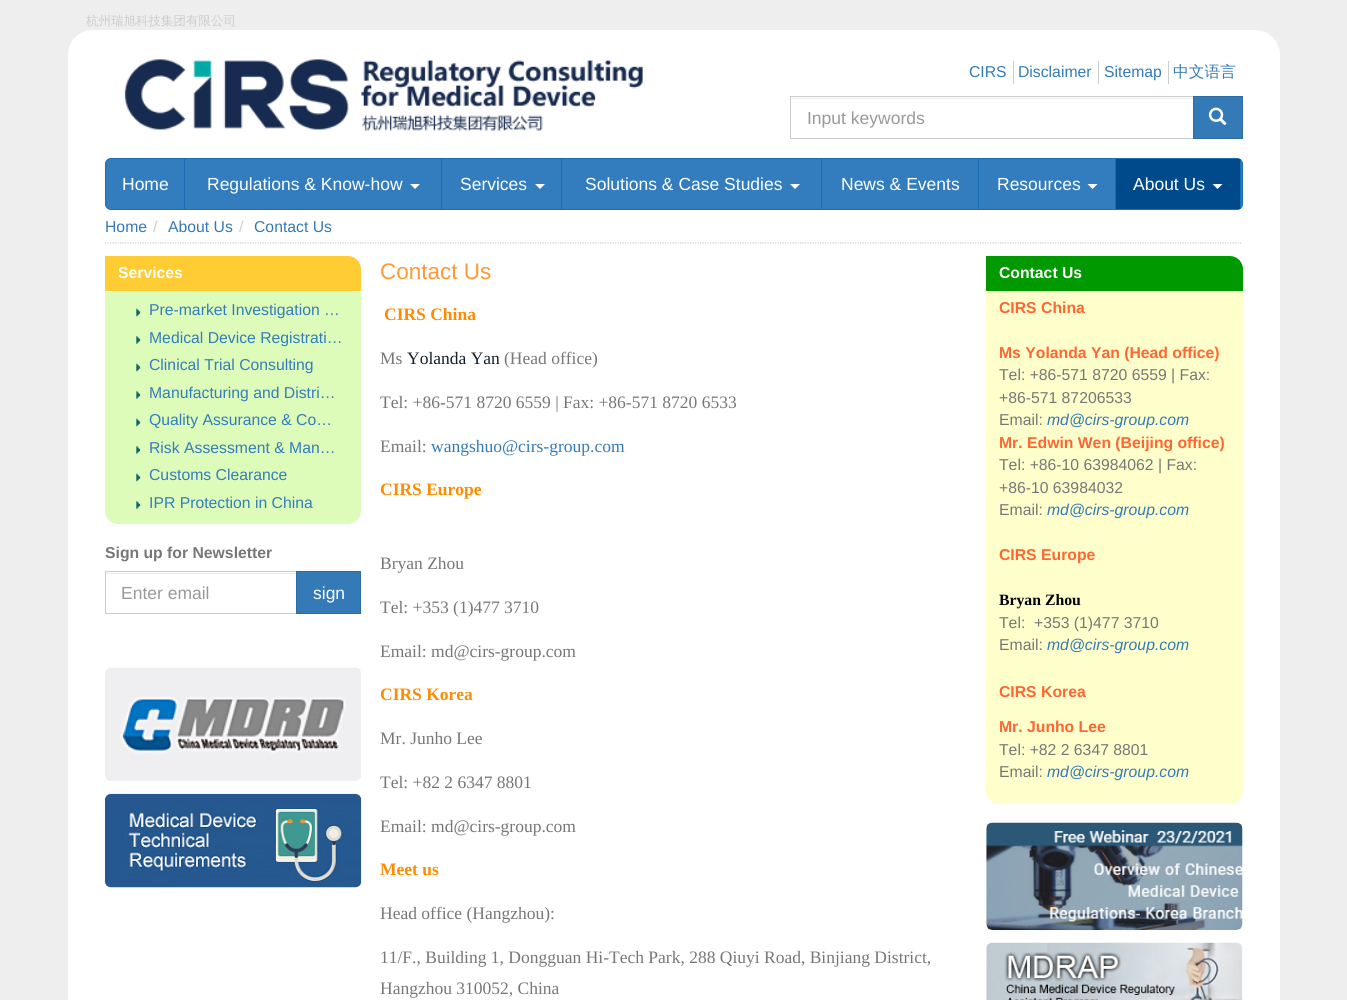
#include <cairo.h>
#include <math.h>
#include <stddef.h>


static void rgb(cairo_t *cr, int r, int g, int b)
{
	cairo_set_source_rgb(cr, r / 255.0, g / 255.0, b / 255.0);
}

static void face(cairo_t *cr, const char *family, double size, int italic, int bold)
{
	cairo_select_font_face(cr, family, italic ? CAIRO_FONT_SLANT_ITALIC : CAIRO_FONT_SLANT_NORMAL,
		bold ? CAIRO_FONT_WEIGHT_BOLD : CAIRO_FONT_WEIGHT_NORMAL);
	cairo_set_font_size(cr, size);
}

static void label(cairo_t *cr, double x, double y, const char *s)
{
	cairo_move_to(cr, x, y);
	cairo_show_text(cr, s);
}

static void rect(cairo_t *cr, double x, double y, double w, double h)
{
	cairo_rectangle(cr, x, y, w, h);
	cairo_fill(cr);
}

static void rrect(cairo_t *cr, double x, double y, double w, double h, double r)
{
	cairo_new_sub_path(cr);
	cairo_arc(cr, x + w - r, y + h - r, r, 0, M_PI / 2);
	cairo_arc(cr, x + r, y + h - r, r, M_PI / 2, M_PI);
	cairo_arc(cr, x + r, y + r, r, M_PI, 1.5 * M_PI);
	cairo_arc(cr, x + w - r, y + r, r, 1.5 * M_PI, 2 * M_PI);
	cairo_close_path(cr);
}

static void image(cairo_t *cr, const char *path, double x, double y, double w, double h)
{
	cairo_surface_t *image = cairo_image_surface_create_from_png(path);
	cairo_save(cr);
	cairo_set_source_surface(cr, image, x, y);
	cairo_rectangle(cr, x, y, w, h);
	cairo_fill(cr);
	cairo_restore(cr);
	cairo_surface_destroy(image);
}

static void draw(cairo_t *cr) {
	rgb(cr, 238, 238, 238);
	cairo_paint(cr);
	face(cr, "WenQuanYi Zen Hei Medium", 12.5, 0, 0);
	rgb(cr, 204, 204, 204);
	label(cr, 86, 25, "杭州瑞旭科技集团有限公司");
	rgb(cr, 255, 255, 255);
	rrect(cr, 68, 30, 1212, 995, 25);
	cairo_fill(cr);
	image(cr, "image0.png", 124, 59, 519, 72);
	rgb(cr, 204, 204, 204);
	rect(cr, 1013, 61, 1, 23);
	face(cr, "Liberation Sans", 15.75, 0, 0);
	rgb(cr, 51, 122, 183);
	label(cr, 969, 77, "CIRS");
	rgb(cr, 204, 204, 204);
	rect(cr, 1098, 61, 1, 23);
	rgb(cr, 51, 122, 183);
	label(cr, 1018, 77, "Disclaimer");
	rgb(cr, 204, 204, 204);
	rect(cr, 1168, 61, 1, 23);
	rgb(cr, 51, 122, 183);
	label(cr, 1104, 77, "Sitemap");
	face(cr, "WenQuanYi Zen Hei Medium", 15.75, 0, 0);
	label(cr, 1173, 77, "中文语言");
	rgb(cr, 236, 236, 236);
	rect(cr, 791, 98, 402, 1);
	cairo_rectangle(cr, 790.5, 96.5, 403, 42);
	rgb(cr, 204, 204, 204);
	cairo_set_line_width(cr, 1);
	cairo_stroke(cr);
	face(cr, "Liberation Sans", 17.5, 0, 0);
	rgb(cr, 153, 153, 153);
	label(cr, 807, 124, "Input keywords");
	rgb(cr, 51, 122, 183);
	cairo_rectangle(cr, 1193.5, 96.5, 49, 42);
	cairo_fill_preserve(cr);
	rgb(cr, 46, 109, 164);
	cairo_stroke(cr);
	image(cr, "image1.png", 1208, 107, 19, 19);
	rgb(cr, 51, 124, 189);
	rrect(cr, 105.5, 158.5, 1137, 51, 5.5);
	cairo_fill_preserve(cr);
	rgb(cr, 28, 109, 181);
	cairo_stroke(cr);
	rect(cr, 184, 159, 1, 50);
	rgb(cr, 255, 255, 255);
	label(cr, 122, 190, "Home");
	rgb(cr, 28, 109, 181);
	rect(cr, 441, 159, 1, 50);
	rgb(cr, 255, 255, 255);
	label(cr, 207, 190, "Regulations & Know-how");
	cairo_new_path(cr);
	cairo_move_to(cr, 410, 184);
	cairo_line_to(cr, 420, 184);
	cairo_line_to(cr, 415, 189);
	cairo_close_path(cr);
	cairo_fill(cr);
	rgb(cr, 28, 109, 181);
	rect(cr, 561, 159, 1, 50);
	rgb(cr, 255, 255, 255);
	label(cr, 460, 190, "Services");
	cairo_new_path(cr);
	cairo_move_to(cr, 535, 184);
	cairo_line_to(cr, 545, 184);
	cairo_line_to(cr, 540, 189);
	cairo_close_path(cr);
	cairo_fill(cr);
	rgb(cr, 28, 109, 181);
	rect(cr, 821, 159, 1, 50);
	rgb(cr, 255, 255, 255);
	label(cr, 585, 190, "Solutions & Case Studies");
	cairo_new_path(cr);
	cairo_move_to(cr, 790, 184);
	cairo_line_to(cr, 800, 184);
	cairo_line_to(cr, 795, 189);
	cairo_close_path(cr);
	cairo_fill(cr);
	rgb(cr, 28, 109, 181);
	rect(cr, 978, 159, 1, 50);
	rgb(cr, 255, 255, 255);
	label(cr, 841, 190, "News & Events");
	rgb(cr, 28, 109, 181);
	rect(cr, 1115, 159, 1, 50);
	rgb(cr, 255, 255, 255);
	label(cr, 997, 190, "Resources");
	cairo_new_path(cr);
	cairo_move_to(cr, 1087.5, 184);
	cairo_line_to(cr, 1097.5, 184);
	cairo_line_to(cr, 1092.5, 189);
	cairo_close_path(cr);
	cairo_fill(cr);
	rgb(cr, 28, 109, 181);
	rect(cr, 1240, 159, 1, 50);
	rgb(cr, 0, 73, 139);
	rect(cr, 1116, 159, 124, 50);
	rgb(cr, 255, 255, 255);
	label(cr, 1133, 190, "About Us");
	cairo_new_path(cr);
	cairo_move_to(cr, 1212.5, 184);
	cairo_line_to(cr, 1222.5, 184);
	cairo_line_to(cr, 1217.5, 189);
	cairo_close_path(cr);
	cairo_fill(cr);
	cairo_new_path(cr);
	cairo_move_to(cr, 105, 243);
	cairo_line_to(cr, 1242.5, 243);
	rgb(cr, 204, 204, 204);
	cairo_set_line_width(cr, 1.2);
	cairo_set_dash(cr, (double[]){1.25, 1.25}, 2, 0);
	cairo_stroke(cr);
	face(cr, "Liberation Sans", 15.75, 0, 0);
	rgb(cr, 51, 122, 183);
	label(cr, 105, 232, "Home");
	rgb(cr, 204, 204, 204);
	label(cr, 153, 232, "/");
	rgb(cr, 51, 122, 183);
	label(cr, 168, 232, "About Us");
	rgb(cr, 204, 204, 204);
	label(cr, 239, 232, "/");
	rgb(cr, 51, 122, 183);
	label(cr, 254, 232, "Contact Us");
	rgb(cr, 255, 204, 51);
	cairo_new_path(cr);
	cairo_move_to(cr, 105, 256);
	cairo_line_to(cr, 348, 256);
	cairo_curve_to(cr, 355, 256, 361, 262, 361, 269);
	cairo_line_to(cr, 361, 291);
	cairo_line_to(cr, 105, 291);
	cairo_close_path(cr);
	cairo_fill(cr);
	face(cr, "Liberation Sans", 15.75, 0, 1);
	rgb(cr, 255, 255, 255);
	label(cr, 118, 278, "Services");
	rgb(cr, 221, 252, 186);
	cairo_new_path(cr);
	cairo_move_to(cr, 105, 291);
	cairo_line_to(cr, 361, 291);
	cairo_line_to(cr, 361, 511);
	cairo_curve_to(cr, 361, 518, 355, 524, 348, 524);
	cairo_line_to(cr, 118, 524);
	cairo_curve_to(cr, 111, 524, 105, 518, 105, 511);
	cairo_close_path(cr);
	cairo_fill(cr);
	image(cr, "image2.png", 136, 308, 5, 9);
	face(cr, "Liberation Sans", 15.75, 0, 0);
	rgb(cr, 51, 124, 189);
	label(cr, 149, 315, "Pre-market Investigation …");
	image(cr, "image3.png", 136, 336, 5, 8);
	label(cr, 149, 343, "Medical Device Registrati…");
	image(cr, "image2.png", 136, 363, 5, 9);
	label(cr, 149, 370, "Clinical Trial Consulting");
	image(cr, "image3.png", 136, 391, 5, 8);
	label(cr, 149, 398, "Manufacturing and Distri…");
	image(cr, "image2.png", 136, 418, 5, 9);
	label(cr, 149, 425, "Quality Assurance & Co…");
	image(cr, "image3.png", 136, 446, 5, 8);
	label(cr, 149, 453, "Risk Assessment & Man…");
	image(cr, "image2.png", 136, 473, 5, 9);
	label(cr, 149, 480, "Customs Clearance");
	image(cr, "image3.png", 136, 501, 5, 8);
	label(cr, 149, 508, "IPR Protection in China");
	face(cr, "Liberation Sans", 15.75, 0, 1);
	rgb(cr, 119, 119, 119);
	label(cr, 105, 558, "Sign up for Newsletter");
	rgb(cr, 236, 236, 236);
	rect(cr, 106, 573, 190, 1);
	cairo_rectangle(cr, 105.5, 571.5, 192, 42);
	rgb(cr, 204, 204, 204);
	cairo_set_line_width(cr, 1);
	cairo_set_dash(cr, NULL, 0, 0);
	cairo_stroke(cr);
	face(cr, "Liberation Sans", 17.5, 0, 0);
	rgb(cr, 153, 153, 153);
	label(cr, 121, 599, "Enter email");
	rgb(cr, 51, 122, 183);
	cairo_rectangle(cr, 296.5, 571.5, 64, 42);
	cairo_fill_preserve(cr);
	rgb(cr, 46, 109, 164);
	cairo_stroke(cr);
	rgb(cr, 255, 255, 255);
	label(cr, 313, 599, "sign");
	image(cr, "image4.png", 105, 667, 256, 114);
	image(cr, "image5.png", 105, 793, 257, 95);
	face(cr, "Liberation Sans", 22.5, 0, 0);
	rgb(cr, 255, 153, 51);
	label(cr, 380, 279, "Contact Us");
	face(cr, "Liberation Serif", 17.5, 0, 1);
	rgb(cr, 255, 140, 0);
	label(cr, 384, 320, "CIRS China");
	face(cr, "Liberation Serif", 17.5, 0, 0);
	rgb(cr, 119, 119, 119);
	label(cr, 380, 364, "Ms");
	rgb(cr, 17, 31, 44);
	label(cr, 407, 364, "Yolanda Yan");
	rgb(cr, 119, 119, 119);
	label(cr, 504, 364, "(Head office)");
	label(cr, 380, 408, "Tel: +86-571 8720 6559 | Fax: +86-571 8720 6533");
	label(cr, 380, 452, "Email:");
	rgb(cr, 51, 122, 183);
	label(cr, 431, 452, "wangshuo@cirs-group.com");
	face(cr, "Liberation Serif", 17.5, 0, 1);
	rgb(cr, 255, 140, 0);
	label(cr, 380, 495, "CIRS Europe");
	face(cr, "Liberation Serif", 17.5, 0, 0);
	rgb(cr, 119, 119, 119);
	label(cr, 380, 569, "Bryan Zhou");
	label(cr, 380, 613, "Tel: +353 (1)477 3710");
	label(cr, 380, 657, "Email: md@cirs-group.com");
	face(cr, "Liberation Serif", 17.5, 0, 1);
	rgb(cr, 255, 140, 0);
	label(cr, 380, 700, "CIRS Korea");
	face(cr, "Liberation Serif", 17.5, 0, 0);
	rgb(cr, 119, 119, 119);
	label(cr, 380, 744, "Mr. Junho Lee");
	label(cr, 380, 788, "Tel: +82 2 6347 8801");
	label(cr, 380, 832, "Email: md@cirs-group.com");
	face(cr, "Liberation Serif", 17.5, 0, 1);
	rgb(cr, 255, 140, 0);
	label(cr, 380, 875, "Meet us");
	face(cr, "Liberation Serif", 17.5, 0, 0);
	rgb(cr, 119, 119, 119);
	label(cr, 380, 919, "Head office (Hangzhou):");
	label(cr, 380, 963, "11/F., Building 1, Dongguan Hi-Tech Park, 288 Qiuyi Road, Binjiang District,");
	label(cr, 380, 994, "Hangzhou 310052, China");
	rgb(cr, 0, 153, 0);
	cairo_new_path(cr);
	cairo_move_to(cr, 986, 256);
	cairo_line_to(cr, 1230, 256);
	cairo_curve_to(cr, 1237, 256, 1243, 262, 1243, 269);
	cairo_line_to(cr, 1243, 291);
	cairo_line_to(cr, 986, 291);
	cairo_close_path(cr);
	cairo_fill(cr);
	face(cr, "Liberation Sans", 15.75, 0, 1);
	rgb(cr, 255, 255, 255);
	label(cr, 999, 278, "Contact Us");
	rgb(cr, 255, 255, 204);
	cairo_new_path(cr);
	cairo_move_to(cr, 986, 291);
	cairo_line_to(cr, 1243, 291);
	cairo_line_to(cr, 1243, 791);
	cairo_curve_to(cr, 1243, 798, 1237, 804, 1230, 804);
	cairo_line_to(cr, 999, 804);
	cairo_curve_to(cr, 992, 804, 986, 798, 986, 791);
	cairo_close_path(cr);
	cairo_fill(cr);
	rgb(cr, 255, 102, 51);
	label(cr, 999, 313, "CIRS China");
	label(cr, 999, 358, "Ms Yolanda Yan (Head office)");
	face(cr, "Liberation Sans", 15.75, 0, 0);
	rgb(cr, 119, 119, 119);
	label(cr, 999, 380, "Tel: +86-571 8720 6559 | Fax:");
	label(cr, 999, 403, "+86-571 87206533");
	label(cr, 999, 425, "Email:");
	face(cr, "Liberation Sans", 15.75, 1, 0);
	rgb(cr, 51, 122, 183);
	label(cr, 1047, 425, "md@cirs-group.com");
	face(cr, "Liberation Sans", 15.75, 0, 1);
	rgb(cr, 255, 102, 51);
	label(cr, 999, 448, "Mr. Edwin Wen (Beijing office)");
	face(cr, "Liberation Sans", 15.75, 0, 0);
	rgb(cr, 119, 119, 119);
	label(cr, 999, 470, "Tel: +86-10 63984062 | Fax:");
	label(cr, 999, 493, "+86-10 63984032");
	label(cr, 999, 515, "Email:");
	face(cr, "Liberation Sans", 15.75, 1, 0);
	rgb(cr, 51, 122, 183);
	label(cr, 1047, 515, "md@cirs-group.com");
	face(cr, "Liberation Sans", 15.75, 0, 1);
	rgb(cr, 255, 102, 51);
	label(cr, 999, 560, "CIRS Europe");
	face(cr, "Liberation Serif", 15.75, 0, 1);
	rgb(cr, 0, 0, 0);
	label(cr, 999, 605, "Bryan Zhou");
	face(cr, "Liberation Sans", 15.75, 0, 0);
	rgb(cr, 119, 119, 119);
	label(cr, 999, 628, "Tel:  +353 (1)477 3710");
	label(cr, 999, 650, "Email:");
	face(cr, "Liberation Sans", 15.75, 1, 0);
	rgb(cr, 51, 122, 183);
	label(cr, 1047, 650, "md@cirs-group.com");
	face(cr, "Liberation Sans", 15.75, 0, 1);
	rgb(cr, 255, 102, 51);
	label(cr, 999, 697, "CIRS Korea");
	label(cr, 999, 732, "Mr. Junho Lee");
	face(cr, "Liberation Sans", 15.75, 0, 0);
	rgb(cr, 119, 119, 119);
	label(cr, 999, 755, "Tel: +82 2 6347 8801");
	label(cr, 999, 777, "Email:");
	face(cr, "Liberation Sans", 15.75, 1, 0);
	rgb(cr, 51, 122, 183);
	label(cr, 1047, 777, "md@cirs-group.com");
	image(cr, "image6.png", 986, 822, 257, 108);
	image(cr, "image7.png", 986, 942, 257, 58);
}

int main(void) {
	cairo_surface_t *surface = cairo_image_surface_create(CAIRO_FORMAT_RGB24, 1347, 1000);
	cairo_t *cr = cairo_create(surface);
	cairo_font_options_t *options = cairo_font_options_create();
	cairo_font_options_set_hint_metrics(options, CAIRO_HINT_METRICS_OFF);
	cairo_font_options_set_hint_style(options, CAIRO_HINT_STYLE_NONE);
	cairo_set_font_options(cr, options);
	cairo_set_miter_limit(cr, 4);
	draw(cr);
	cairo_surface_write_to_png(surface, "render.png");
	cairo_font_options_destroy(options);
	cairo_destroy(cr);
	cairo_surface_destroy(surface);
	return 0;
}
